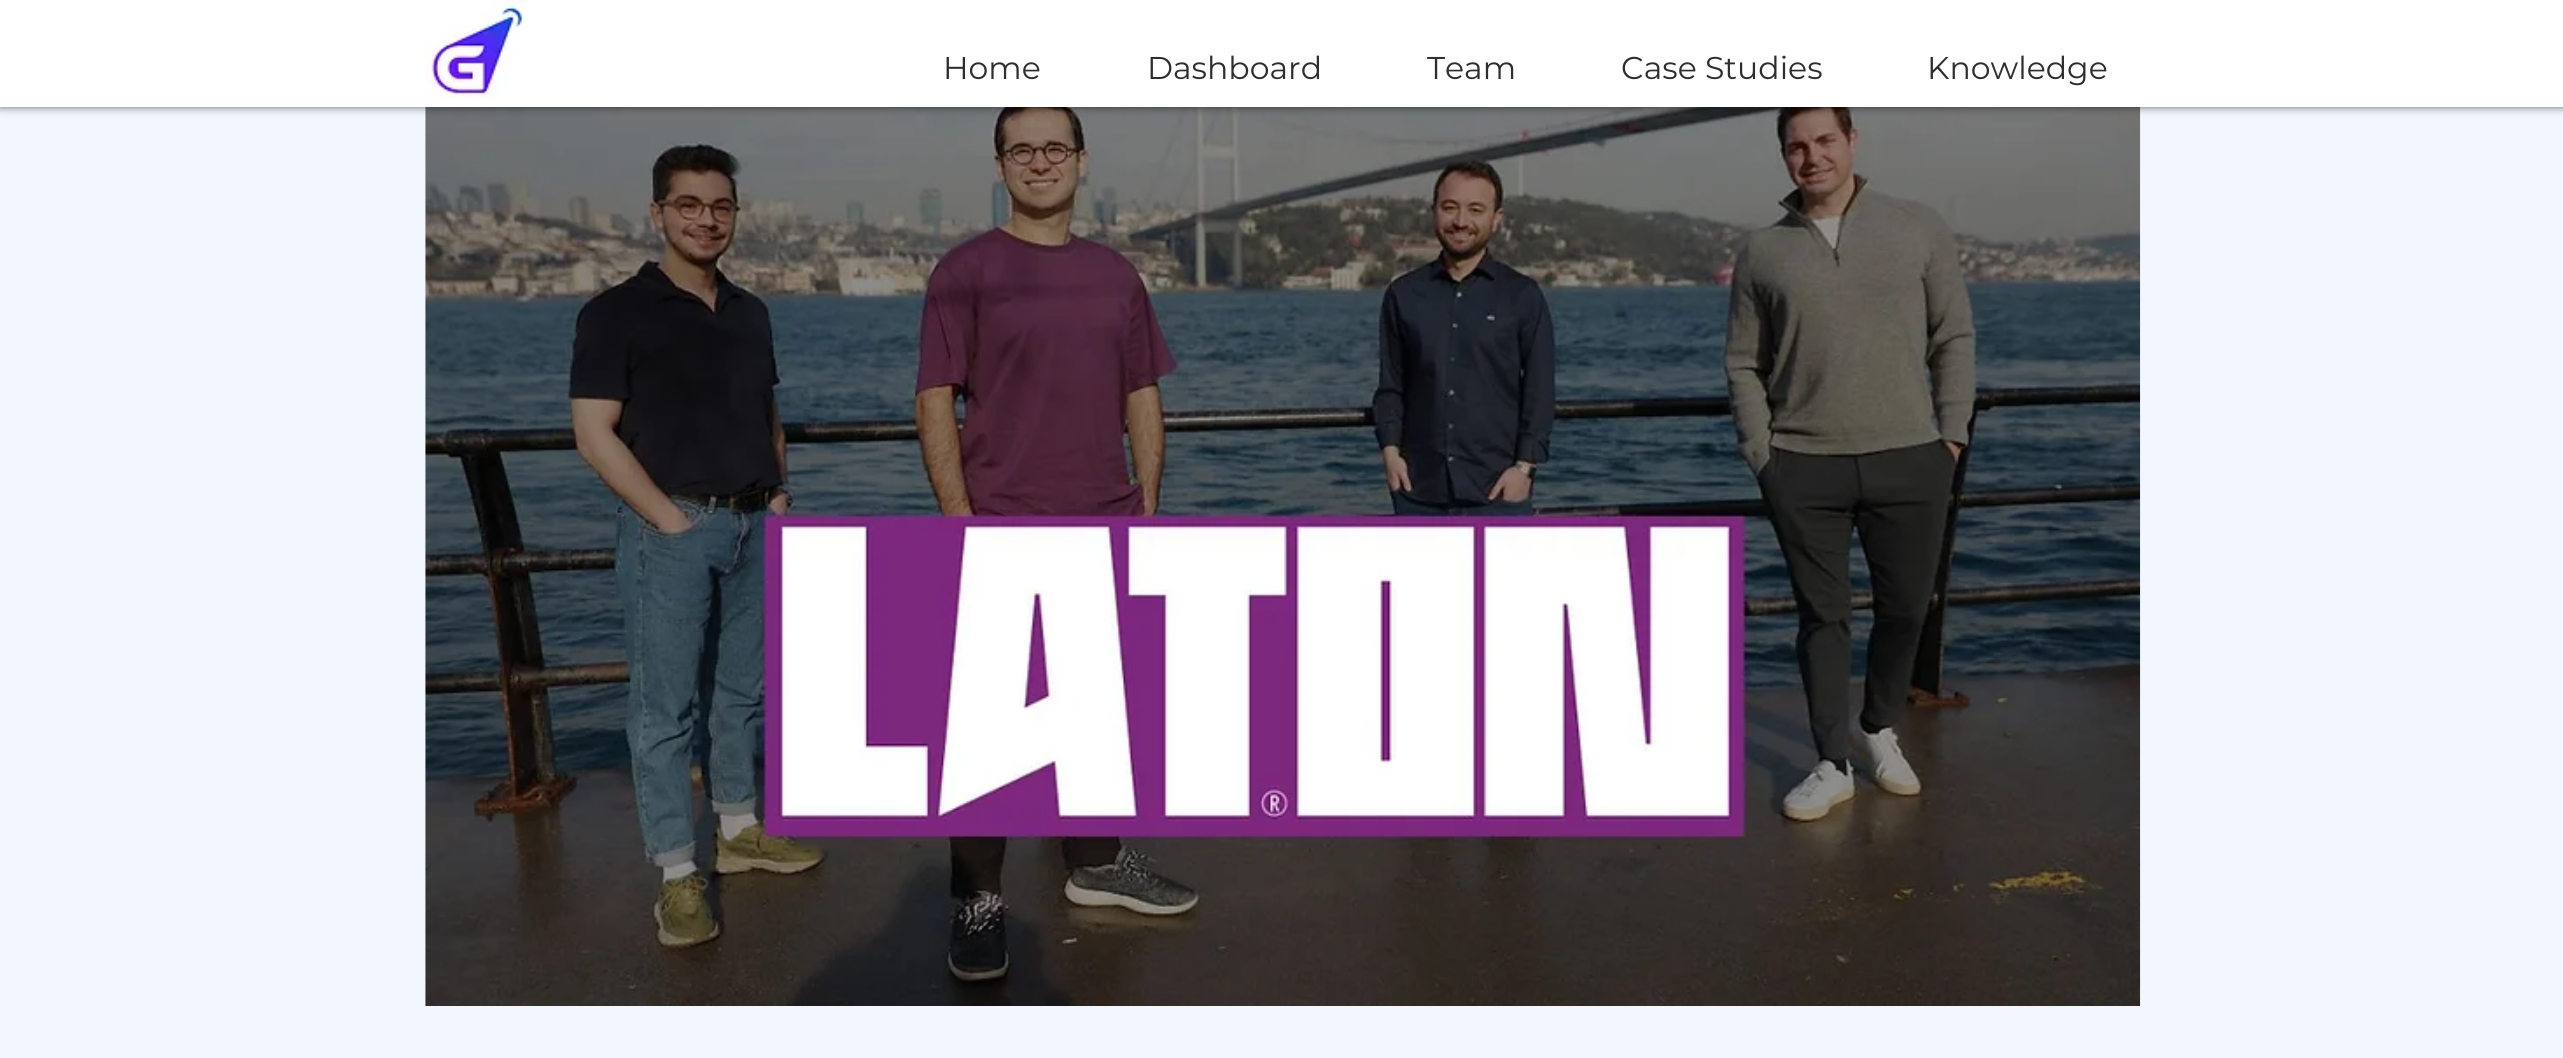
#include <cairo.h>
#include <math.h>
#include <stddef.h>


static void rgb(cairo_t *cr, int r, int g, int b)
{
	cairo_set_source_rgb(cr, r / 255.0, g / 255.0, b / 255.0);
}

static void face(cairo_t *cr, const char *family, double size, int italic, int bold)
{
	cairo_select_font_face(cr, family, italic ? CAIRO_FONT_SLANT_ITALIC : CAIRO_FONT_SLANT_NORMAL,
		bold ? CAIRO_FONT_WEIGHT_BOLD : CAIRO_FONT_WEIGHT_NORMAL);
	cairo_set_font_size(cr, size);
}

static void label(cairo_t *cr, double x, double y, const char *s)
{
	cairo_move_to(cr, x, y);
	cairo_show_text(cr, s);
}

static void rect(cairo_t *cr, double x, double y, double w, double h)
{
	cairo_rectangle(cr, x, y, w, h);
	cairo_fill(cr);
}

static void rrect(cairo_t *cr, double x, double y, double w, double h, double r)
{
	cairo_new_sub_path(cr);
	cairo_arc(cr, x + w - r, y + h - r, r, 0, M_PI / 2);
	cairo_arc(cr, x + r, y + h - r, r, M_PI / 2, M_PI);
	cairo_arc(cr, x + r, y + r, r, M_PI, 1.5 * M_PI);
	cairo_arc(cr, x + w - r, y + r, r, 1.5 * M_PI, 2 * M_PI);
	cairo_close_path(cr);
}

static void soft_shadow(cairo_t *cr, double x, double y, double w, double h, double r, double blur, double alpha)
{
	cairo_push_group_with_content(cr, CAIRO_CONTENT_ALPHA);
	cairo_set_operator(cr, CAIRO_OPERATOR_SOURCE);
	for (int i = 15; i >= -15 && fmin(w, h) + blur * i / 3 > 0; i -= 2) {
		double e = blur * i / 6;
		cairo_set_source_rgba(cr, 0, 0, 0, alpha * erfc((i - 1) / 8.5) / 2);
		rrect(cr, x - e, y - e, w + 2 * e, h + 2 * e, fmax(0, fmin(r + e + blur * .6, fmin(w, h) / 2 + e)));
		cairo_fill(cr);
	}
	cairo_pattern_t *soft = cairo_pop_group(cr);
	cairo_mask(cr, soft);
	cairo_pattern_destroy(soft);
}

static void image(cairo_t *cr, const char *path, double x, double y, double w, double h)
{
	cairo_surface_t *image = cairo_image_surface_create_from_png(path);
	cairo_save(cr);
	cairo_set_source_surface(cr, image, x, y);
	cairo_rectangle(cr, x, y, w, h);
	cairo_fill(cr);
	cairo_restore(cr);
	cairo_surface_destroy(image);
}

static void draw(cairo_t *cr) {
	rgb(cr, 242, 247, 255);
	cairo_paint(cr);
	rgb(cr, 250, 250, 250);
	rect(cr, 425, 107, 1, 899);
	image(cr, "image1.png", 425, 107, 1716, 899);
	rgb(cr, 0, 0, 0);
	soft_shadow(cr, 0, 0, 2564, 107, 0, 4.5, 0.58);
	rgb(cr, 255, 255, 255);
	rect(cr, 0, 0, 2563, 107);
	image(cr, "image0.png", 425, 0, 101, 99);
	face(cr, "Montserrat", 31.5, 0, 0);
	rgb(cr, 47, 46, 46);
	label(cr, 943, 79, "Home");
	label(cr, 1147, 79, "Dashboard");
	label(cr, 1427, 79, "Team");
	label(cr, 1621, 79, "Case Studies");
	label(cr, 1927, 79, "Knowledge");
}

int main(void) {
	cairo_surface_t *surface = cairo_image_surface_create(CAIRO_FORMAT_RGB24, 2563, 1058);
	cairo_t *cr = cairo_create(surface);
	cairo_font_options_t *options = cairo_font_options_create();
	cairo_font_options_set_hint_metrics(options, CAIRO_HINT_METRICS_OFF);
	cairo_font_options_set_hint_style(options, CAIRO_HINT_STYLE_NONE);
	cairo_set_font_options(cr, options);
	cairo_set_miter_limit(cr, 4);
	draw(cr);
	cairo_surface_write_to_png(surface, "render.png");
	cairo_font_options_destroy(options);
	cairo_destroy(cr);
	cairo_surface_destroy(surface);
	return 0;
}
